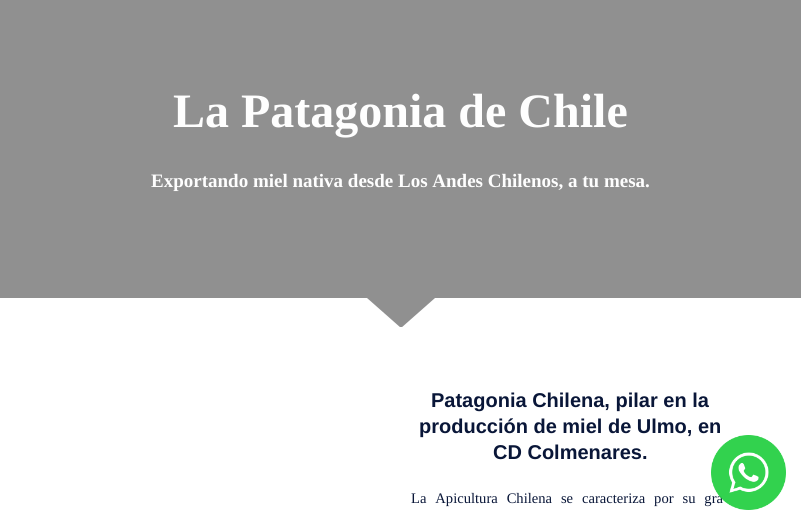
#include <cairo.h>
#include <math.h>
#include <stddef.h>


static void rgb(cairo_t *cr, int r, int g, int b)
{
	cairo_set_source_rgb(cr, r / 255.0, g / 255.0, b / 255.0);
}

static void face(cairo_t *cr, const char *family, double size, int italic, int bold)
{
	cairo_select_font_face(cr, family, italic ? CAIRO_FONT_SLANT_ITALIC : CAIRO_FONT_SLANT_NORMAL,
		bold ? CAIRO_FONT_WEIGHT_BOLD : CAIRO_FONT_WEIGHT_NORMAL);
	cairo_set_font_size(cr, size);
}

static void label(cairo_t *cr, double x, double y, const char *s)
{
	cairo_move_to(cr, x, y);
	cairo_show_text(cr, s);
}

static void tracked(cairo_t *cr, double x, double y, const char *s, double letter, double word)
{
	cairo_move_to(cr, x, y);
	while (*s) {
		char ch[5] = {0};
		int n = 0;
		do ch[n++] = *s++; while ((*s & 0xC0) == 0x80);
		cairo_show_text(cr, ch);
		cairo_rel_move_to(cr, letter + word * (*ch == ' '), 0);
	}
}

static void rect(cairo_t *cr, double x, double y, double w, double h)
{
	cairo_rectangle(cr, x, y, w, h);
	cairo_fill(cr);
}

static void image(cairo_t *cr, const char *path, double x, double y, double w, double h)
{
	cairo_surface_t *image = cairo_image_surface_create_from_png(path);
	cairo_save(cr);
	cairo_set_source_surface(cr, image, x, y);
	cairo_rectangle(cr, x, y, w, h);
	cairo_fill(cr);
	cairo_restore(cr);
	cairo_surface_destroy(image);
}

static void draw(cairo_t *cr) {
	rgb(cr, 255, 255, 255);
	cairo_paint(cr);
	rgb(cr, 144, 144, 144);
	rect(cr, 0, 0, 801, 327);
	face(cr, "Liberation Serif", 48, 0, 1);
	rgb(cr, 254, 254, 254);
	label(cr, 173, 127, "La Patagonia de Chile");
	face(cr, "Liberation Serif", 19, 0, 1);
	label(cr, 151, 187, "Exportando miel nativa desde Los Andes Chilenos, a tu mesa.");
	rgb(cr, 255, 255, 255);
	cairo_new_path(cr);
	cairo_move_to(cr, 435, 298);
	cairo_line_to(cr, 401, 328);
	cairo_line_to(cr, 367, 298);
	cairo_line_to(cr, -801, 298);
	cairo_line_to(cr, -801, 328);
	cairo_line_to(cr, 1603, 328);
	cairo_line_to(cr, 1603, 298);
	cairo_fill(cr);
	face(cr, "Liberation Sans", 20, 0, 1);
	rgb(cr, 9, 22, 56);
	label(cr, 431, 407, "Patagonia Chilena, pilar en la");
	label(cr, 419, 433, "producción de miel de Ulmo, en");
	label(cr, 493, 459, "CD Colmenares.");
	face(cr, "Liberation Serif", 14.6, 0, 0);
	tracked(cr, 411, 503, "La Apicultura Chilena se caracteriza por su gra", 0, 5.25);
	image(cr, "image0.png", 711, 435, 75, 75);
}

int main(void) {
	cairo_surface_t *surface = cairo_image_surface_create(CAIRO_FORMAT_RGB24, 801, 525);
	cairo_t *cr = cairo_create(surface);
	cairo_font_options_t *options = cairo_font_options_create();
	cairo_font_options_set_hint_metrics(options, CAIRO_HINT_METRICS_OFF);
	cairo_font_options_set_hint_style(options, CAIRO_HINT_STYLE_NONE);
	cairo_set_font_options(cr, options);
	cairo_set_miter_limit(cr, 4);
	draw(cr);
	cairo_surface_write_to_png(surface, "render.png");
	cairo_font_options_destroy(options);
	cairo_destroy(cr);
	cairo_surface_destroy(surface);
	return 0;
}
